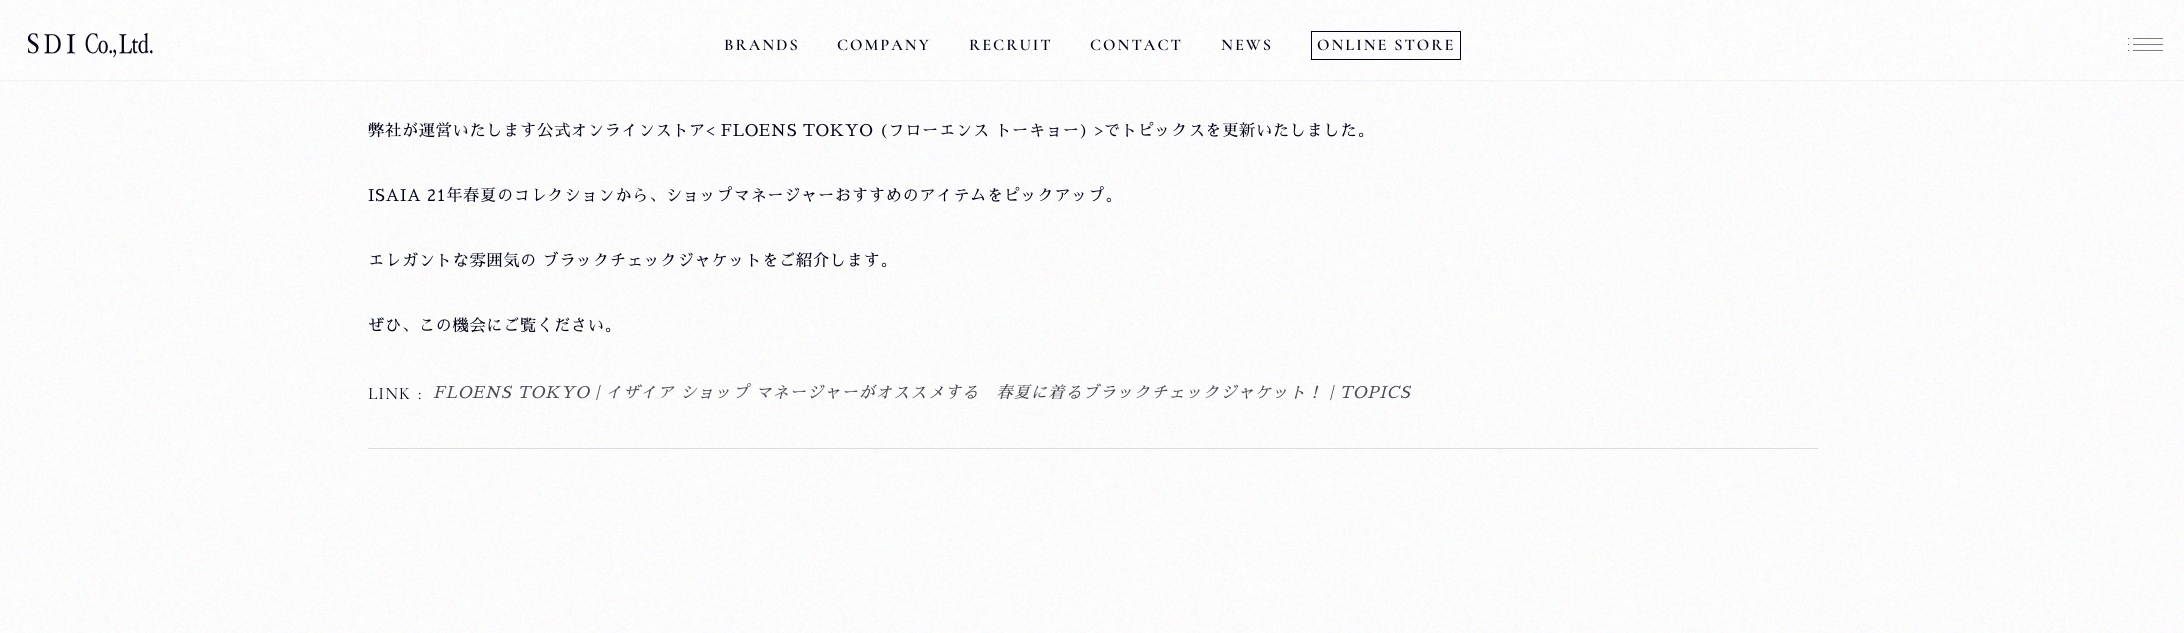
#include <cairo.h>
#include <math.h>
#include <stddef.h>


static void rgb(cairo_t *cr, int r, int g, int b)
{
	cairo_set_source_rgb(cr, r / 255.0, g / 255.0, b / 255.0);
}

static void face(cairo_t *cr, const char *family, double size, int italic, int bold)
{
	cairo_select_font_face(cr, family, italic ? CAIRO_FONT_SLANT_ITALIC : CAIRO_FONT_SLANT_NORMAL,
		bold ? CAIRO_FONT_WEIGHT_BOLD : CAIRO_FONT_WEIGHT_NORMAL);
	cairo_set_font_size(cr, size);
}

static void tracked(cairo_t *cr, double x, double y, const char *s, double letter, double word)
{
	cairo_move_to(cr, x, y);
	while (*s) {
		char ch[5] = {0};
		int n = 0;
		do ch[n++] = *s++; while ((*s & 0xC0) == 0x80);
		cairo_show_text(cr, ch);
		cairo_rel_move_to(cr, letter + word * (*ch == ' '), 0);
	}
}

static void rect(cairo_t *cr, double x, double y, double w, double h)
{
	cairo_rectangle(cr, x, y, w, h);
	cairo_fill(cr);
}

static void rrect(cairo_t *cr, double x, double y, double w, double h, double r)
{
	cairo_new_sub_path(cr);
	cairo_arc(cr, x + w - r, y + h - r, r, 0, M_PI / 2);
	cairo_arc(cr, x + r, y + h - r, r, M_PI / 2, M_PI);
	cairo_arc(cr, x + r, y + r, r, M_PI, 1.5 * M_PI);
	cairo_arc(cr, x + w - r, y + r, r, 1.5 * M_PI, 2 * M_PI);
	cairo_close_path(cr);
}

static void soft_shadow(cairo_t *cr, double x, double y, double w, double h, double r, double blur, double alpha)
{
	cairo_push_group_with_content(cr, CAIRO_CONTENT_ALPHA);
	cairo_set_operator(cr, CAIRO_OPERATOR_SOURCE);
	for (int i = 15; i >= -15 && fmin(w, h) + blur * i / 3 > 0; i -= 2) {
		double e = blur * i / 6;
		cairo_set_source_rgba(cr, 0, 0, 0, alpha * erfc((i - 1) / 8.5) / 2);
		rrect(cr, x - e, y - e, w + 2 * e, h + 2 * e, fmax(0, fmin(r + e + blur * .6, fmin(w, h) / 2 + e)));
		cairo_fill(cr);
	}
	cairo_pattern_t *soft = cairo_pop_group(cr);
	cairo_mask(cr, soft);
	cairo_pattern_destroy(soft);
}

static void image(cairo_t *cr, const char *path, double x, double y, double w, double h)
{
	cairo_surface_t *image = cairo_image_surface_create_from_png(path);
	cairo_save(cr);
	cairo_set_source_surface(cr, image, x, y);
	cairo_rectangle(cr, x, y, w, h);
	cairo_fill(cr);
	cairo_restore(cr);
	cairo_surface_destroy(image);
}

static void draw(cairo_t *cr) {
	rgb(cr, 255, 255, 255);
	cairo_paint(cr);
	image(cr, "image0.png", 0, 80, 2184, 553);
	rgb(cr, 150, 150, 150);
	soft_shadow(cr, -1, -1, 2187, 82, 0, 0.5, 0.1);
	image(cr, "image1.png", 0, 0, 2184, 80);
	image(cr, "image2.png", 28, 33, 125, 25);
	face(cr, "Cormorant Garamond SemiBold", 16.25, 0, 0);
	rgb(cr, 2, 2, 21);
	tracked(cr, 724, 50, "BRANDS", 2, 0);
	tracked(cr, 837, 50, "COMPANY", 2, 0);
	tracked(cr, 969, 50, "RECRUIT", 2, 0);
	tracked(cr, 1090, 50, "CONTACT", 2, 0);
	tracked(cr, 1221, 50, "NEWS", 2, 0);
	cairo_rectangle(cr, 1311.5, 31.5, 149, 28);
	cairo_set_line_width(cr, 1);
	cairo_stroke(cr);
	tracked(cr, 1317, 50, "ONLINE STORE", 2, 0);
	cairo_set_source_rgba(cr, 0.286, 0.282, 0.322, 0.7);
	rect(cr, 2133, 38, 30, 1);
	rgb(cr, 77, 78, 91);
	rect(cr, 2128, 38, 1, 1);
	cairo_set_source_rgba(cr, 0.286, 0.282, 0.322, 0.7);
	rect(cr, 2133, 44, 30, 1);
	rgb(cr, 77, 78, 90);
	rect(cr, 2128, 44, 1, 1);
	cairo_set_source_rgba(cr, 0.286, 0.282, 0.322, 0.7);
	rect(cr, 2133, 50, 30, 1);
	rgb(cr, 76, 76, 90);
	rect(cr, 2128, 50, 1, 1);
	rgb(cr, 220, 220, 220);
	rect(cr, 368, 448, 1450, 1);
	face(cr, "Sawarabi Mincho", 16.25, 0, 0);
	rgb(cr, 2, 2, 21);
	tracked(cr, 368, 136, "弊社が運営いたします公式オンラインストア< FLOENS TOKYO (フローエンス トーキョー) >でトピックスを更新いたしました。", 0.65, 0);
	tracked(cr, 368, 201, "ISAIA 21年春夏のコレクションから、ショップマネージャーおすすめのアイテムをピックアップ。", 0.65, 0);
	tracked(cr, 368, 266, "エレガントな雰囲気の ブラックチェックジャケットをご紹介します。", 0.65, 0);
	tracked(cr, 368, 331, "ぜひ、この機会にご覧ください。", 0.65, 0);
	face(cr, "Cormorant Garamond", 17.5, 0, 0);
	tracked(cr, 368, 399, "LINK", 1, 0);
	tracked(cr, 418, 399, ":", 1, 0);
	face(cr, "Sawarabi Mincho", 16.25, 1, 0);
	rgb(cr, 73, 72, 82);
	tracked(cr, 433, 398, "FLOENS TOKYO | イザイア ショップ マネージャーがオススメする　春夏に着るブラックチェックジャケット！ | TOPICS", 0.98, 0);
}

int main(void) {
	cairo_surface_t *surface = cairo_image_surface_create(CAIRO_FORMAT_RGB24, 2184, 633);
	cairo_t *cr = cairo_create(surface);
	cairo_font_options_t *options = cairo_font_options_create();
	cairo_font_options_set_hint_metrics(options, CAIRO_HINT_METRICS_OFF);
	cairo_font_options_set_hint_style(options, CAIRO_HINT_STYLE_NONE);
	cairo_set_font_options(cr, options);
	cairo_set_miter_limit(cr, 4);
	draw(cr);
	cairo_surface_write_to_png(surface, "render.png");
	cairo_font_options_destroy(options);
	cairo_destroy(cr);
	cairo_surface_destroy(surface);
	return 0;
}
